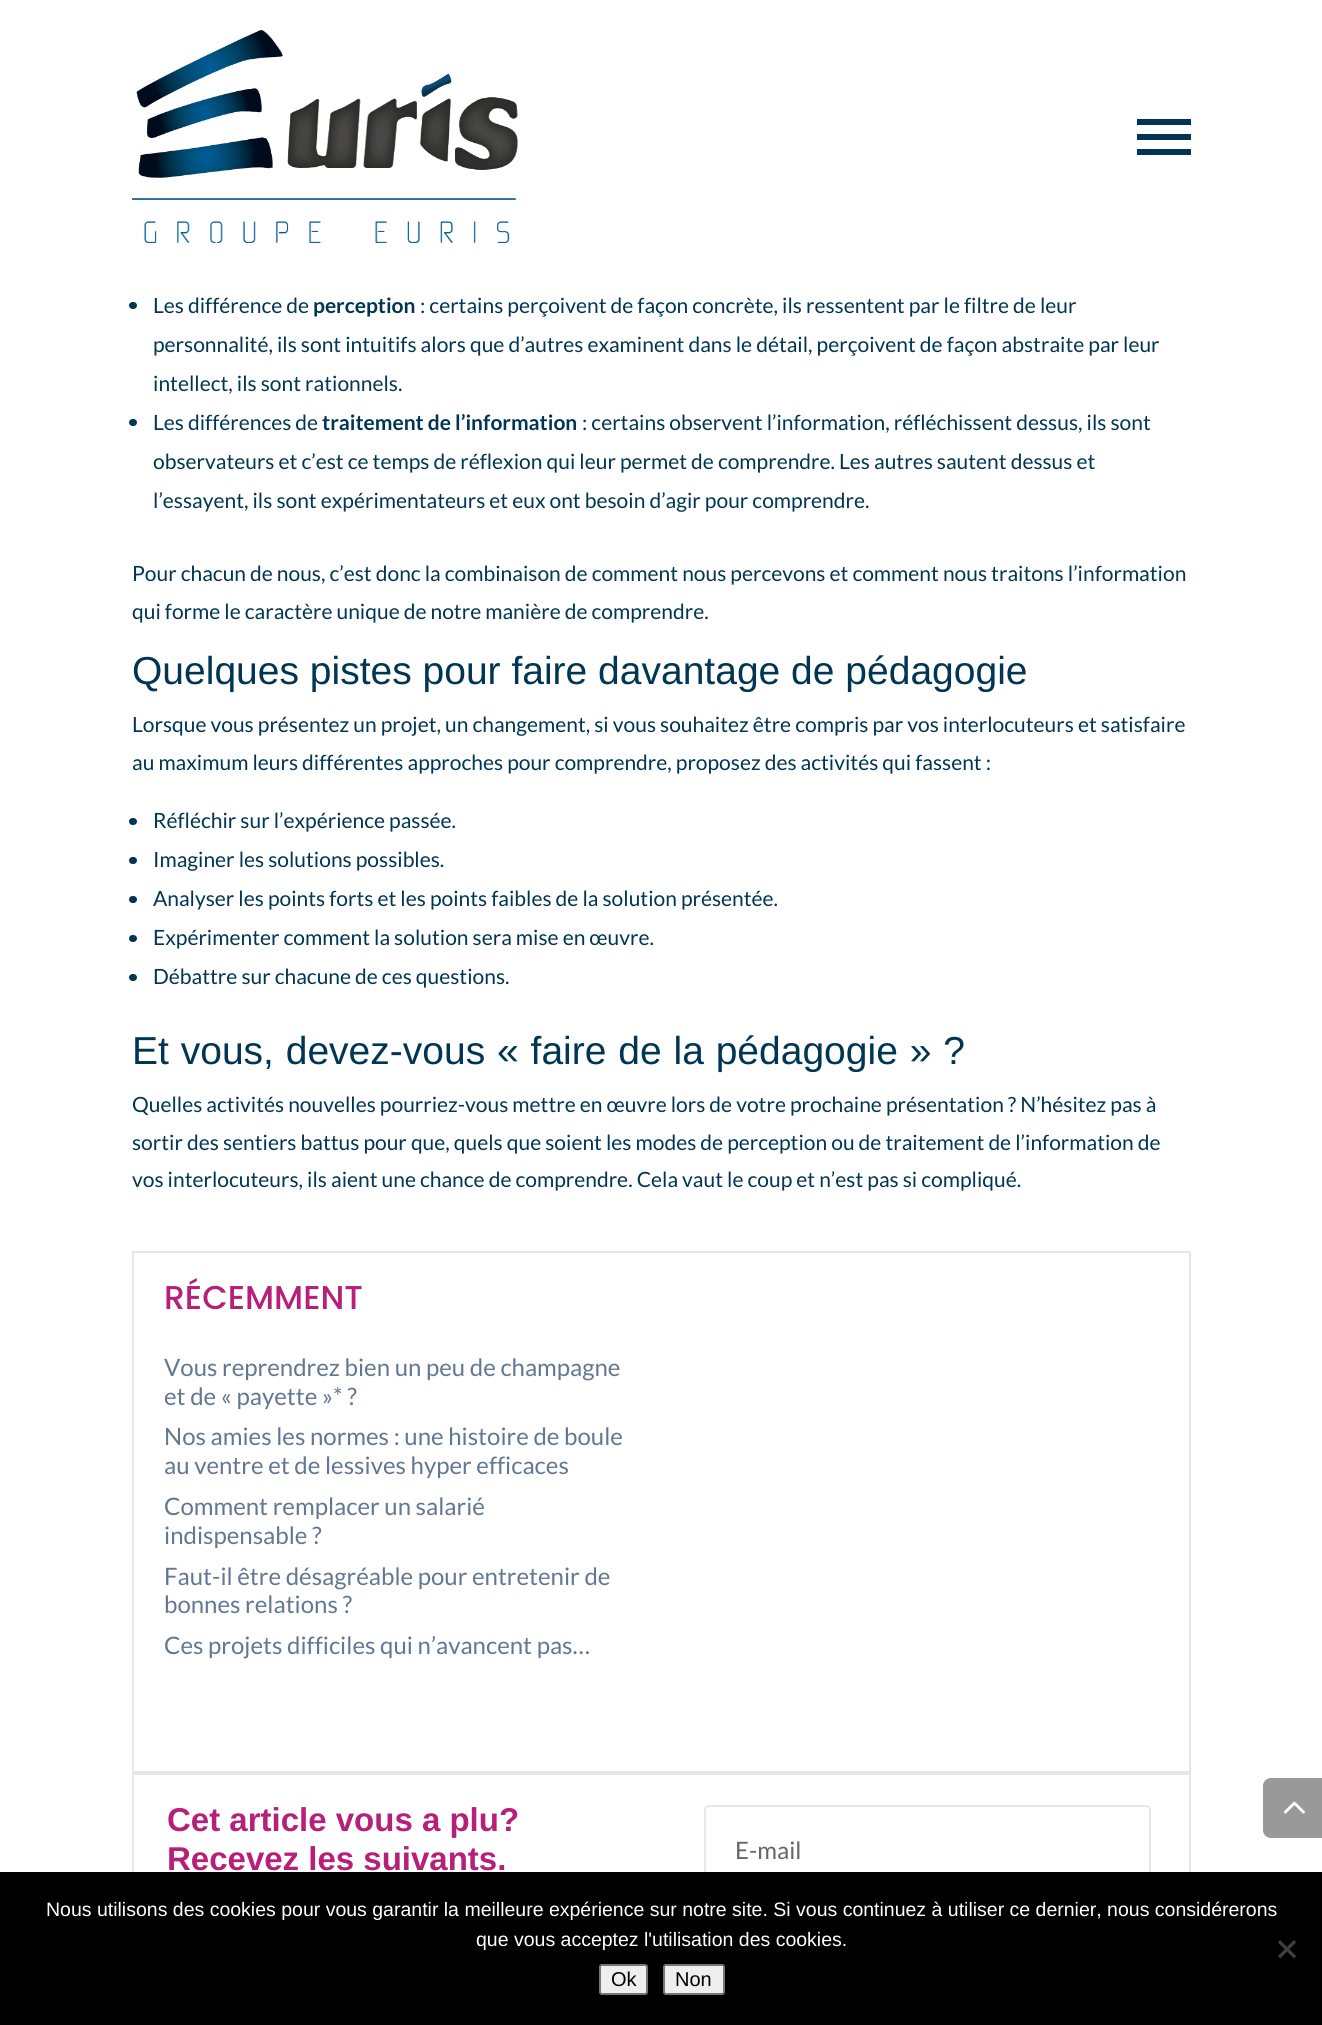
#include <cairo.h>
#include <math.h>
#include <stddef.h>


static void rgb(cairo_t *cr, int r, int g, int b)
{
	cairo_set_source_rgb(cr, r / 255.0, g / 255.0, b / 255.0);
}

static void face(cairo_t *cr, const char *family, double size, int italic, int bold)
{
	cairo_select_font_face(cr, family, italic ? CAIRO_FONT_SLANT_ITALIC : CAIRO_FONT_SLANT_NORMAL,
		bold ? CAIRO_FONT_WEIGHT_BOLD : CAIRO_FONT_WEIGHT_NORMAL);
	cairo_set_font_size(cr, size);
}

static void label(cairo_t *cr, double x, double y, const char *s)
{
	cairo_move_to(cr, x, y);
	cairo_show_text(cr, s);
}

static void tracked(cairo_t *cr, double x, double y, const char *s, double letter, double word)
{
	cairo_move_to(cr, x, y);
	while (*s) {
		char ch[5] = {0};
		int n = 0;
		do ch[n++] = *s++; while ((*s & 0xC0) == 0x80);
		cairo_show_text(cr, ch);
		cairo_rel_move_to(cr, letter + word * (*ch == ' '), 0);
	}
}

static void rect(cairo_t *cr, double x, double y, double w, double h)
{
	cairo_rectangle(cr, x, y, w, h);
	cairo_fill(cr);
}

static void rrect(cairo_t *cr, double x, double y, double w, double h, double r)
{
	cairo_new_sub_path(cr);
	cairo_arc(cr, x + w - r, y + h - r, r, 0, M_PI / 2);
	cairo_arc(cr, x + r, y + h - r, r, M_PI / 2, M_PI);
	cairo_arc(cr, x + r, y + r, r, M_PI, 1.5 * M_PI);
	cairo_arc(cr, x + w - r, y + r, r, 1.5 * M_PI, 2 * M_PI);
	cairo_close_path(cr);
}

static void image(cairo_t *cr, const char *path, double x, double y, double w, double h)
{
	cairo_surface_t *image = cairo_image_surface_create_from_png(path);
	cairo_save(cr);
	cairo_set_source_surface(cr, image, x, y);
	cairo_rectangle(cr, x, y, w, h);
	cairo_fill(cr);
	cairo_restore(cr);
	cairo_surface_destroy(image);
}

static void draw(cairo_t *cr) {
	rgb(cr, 255, 255, 255);
	cairo_paint(cr);
	image(cr, "image0.png", 132, 30, 386, 213);
	rgb(cr, 0, 53, 83);
	rect(cr, 1137, 119, 54, 6);
	rect(cr, 1137, 134, 54, 6);
	rect(cr, 1137, 149, 54, 6);
	rgb(cr, 0, 54, 83);
	rrect(cr, 129, 302, 8, 7, 3.5);
	cairo_fill(cr);
	face(cr, "Lato", 21, 0, 0);
	label(cr, 153, 313, "Les différence de");
	face(cr, "Lato", 21, 0, 1);
	label(cr, 313, 313, "perception");
	face(cr, "Lato", 21, 0, 0);
	label(cr, 420, 313, ": certains perçoivent de façon concrète, ils ressentent par le filtre de leur");
	label(cr, 153, 352, "personnalité, ils sont intuitifs alors que d’autres examinent dans le détail, perçoivent de façon abstraite par leur");
	label(cr, 153, 391, "intellect, ils sont rationnels.");
	rrect(cr, 129, 419, 8, 7, 3.5);
	cairo_fill(cr);
	label(cr, 153, 430, "Les différences de");
	face(cr, "Lato", 21, 0, 1);
	label(cr, 322, 430, "traitement de l’information");
	face(cr, "Lato", 21, 0, 0);
	label(cr, 582, 430, ": certains observent l’information, réfléchissent dessus, ils sont");
	label(cr, 153, 469, "observateurs et c’est ce temps de réflexion qui leur permet de comprendre. Les autres sautent dessus et");
	label(cr, 153, 508, "l’essayent, ils sont expérimentateurs et eux ont besoin d’agir pour comprendre.");
	label(cr, 132, 581, "Pour chacun de nous, c’est donc la combinaison de comment nous percevons et comment nous traitons l’information");
	label(cr, 132, 619, "qui forme le caractère unique de notre manière de comprendre.");
	face(cr, "Liberation Sans", 39, 0, 0);
	label(cr, 132, 684, "Quelques pistes pour faire davantage de pédagogie");
	face(cr, "Lato", 21, 0, 0);
	label(cr, 132, 732, "Lorsque vous présentez un projet, un changement, si vous souhaitez être compris par vos interlocuteurs et satisfaire");
	label(cr, 132, 770, "au maximum leurs différentes approches pour comprendre, proposez des activités qui fassent :");
	rrect(cr, 129, 818, 8, 7, 3.5);
	cairo_fill(cr);
	label(cr, 153, 828, "Réfléchir sur l’expérience passée.");
	rrect(cr, 129, 857, 8, 7, 3.5);
	cairo_fill(cr);
	label(cr, 153, 867, "Imaginer les solutions possibles.");
	rrect(cr, 129, 896, 8, 7, 3.5);
	cairo_fill(cr);
	label(cr, 153, 906, "Analyser les points forts et les points faibles de la solution présentée.");
	rrect(cr, 129, 935, 8, 7, 3.5);
	cairo_fill(cr);
	label(cr, 153, 945, "Expérimenter comment la solution sera mise en œuvre.");
	rrect(cr, 129, 974, 8, 7, 3.5);
	cairo_fill(cr);
	label(cr, 153, 984, "Débattre sur chacune de ces questions.");
	face(cr, "Liberation Sans", 39, 0, 0);
	tracked(cr, 132, 1064, "Et vous, devez-vous « faire de la pédagogie » ?", 0, 1);
	face(cr, "Lato", 21, 0, 0);
	label(cr, 132, 1112, "Quelles activités nouvelles pourriez-vous mettre en œuvre lors de votre prochaine présentation ? N’hésitez pas à");
	label(cr, 132, 1150, "sortir des sentiers battus pour que, quels que soient les modes de perception ou de traitement de l’information de");
	label(cr, 132, 1187, "vos interlocuteurs, ils aient une chance de comprendre. Cela vaut le coup et n’est pas si compliqué.");
	cairo_rectangle(cr, 133, 1252, 1057, 520);
	rgb(cr, 231, 231, 231);
	cairo_stroke(cr);
	face(cr, "Poppins Medium", 33, 0, 0);
	rgb(cr, 182, 32, 121);
	label(cr, 164, 1309, "RÉCEMMENT");
	face(cr, "Lato", 24, 0, 0);
	rgb(cr, 98, 119, 146);
	label(cr, 164, 1376, "Vous reprendrez bien un peu de champagne");
	label(cr, 164, 1405, "et de « payette »* ?");
	label(cr, 164, 1445, "Nos amies les normes : une histoire de boule");
	label(cr, 164, 1474, "au ventre et de lessives hyper efficaces");
	label(cr, 164, 1515, "Comment remplacer un salarié");
	label(cr, 164, 1544, "indispensable ?");
	label(cr, 164, 1585, "Faut-il être désagréable pour entretenir de");
	label(cr, 164, 1613, "bonnes relations ?");
	label(cr, 164, 1654, "Ces projets difficiles qui n’avancent pas…");
	cairo_rectangle(cr, 133, 1774, 1057, 244);
	rgb(cr, 231, 231, 231);
	cairo_stroke(cr);
	face(cr, "Liberation Sans", 33, 0, 1);
	rgb(cr, 182, 32, 121);
	label(cr, 167, 1831, "Cet article vous a plu?");
	label(cr, 167, 1870, "Recevez les suivants.");
	rrect(cr, 705, 1806, 445, 89, 4);
	rgb(cr, 231, 231, 231);
	cairo_stroke(cr);
	face(cr, "Lato", 24, 0, 0);
	rgb(cr, 102, 102, 102);
	label(cr, 735, 1859, "E-mail");
	rgb(cr, 153, 153, 153);
	cairo_new_path(cr);
	cairo_move_to(cr, 1271, 1778);
	cairo_line_to(cr, 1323, 1778);
	cairo_line_to(cr, 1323, 1838);
	cairo_line_to(cr, 1271, 1838);
	cairo_curve_to(cr, 1266.5, 1838, 1263, 1834.5, 1263, 1830);
	cairo_line_to(cr, 1263, 1786);
	cairo_curve_to(cr, 1263, 1781.5, 1266.5, 1778, 1271, 1778);
	cairo_close_path(cr);
	cairo_fill(cr);
	image(cr, "image1.png", 1283, 1801, 22, 13);
	rgb(cr, 0, 0, 0);
	rect(cr, 0, 1872, 1322, 153);
	face(cr, "Liberation Sans", 19.5, 0, 0);
	rgb(cr, 255, 255, 255);
	label(cr, 46, 1916, "Nous utilisons des cookies pour vous garantir la meilleure expérience sur notre site. Si vous continuez à utiliser ce dernier, nous considérerons");
	label(cr, 476, 1946, "que vous acceptez l'utilisation des cookies.");
	rgb(cr, 64, 64, 64);
	cairo_new_path(cr);
	cairo_move_to(cr, 1294, 1940);
	cairo_line_to(cr, 1296, 1942.5);
	cairo_line_to(cr, 1280, 1958.5);
	cairo_line_to(cr, 1278, 1956);
	cairo_close_path(cr);
	cairo_fill(cr);
	cairo_new_path(cr);
	cairo_move_to(cr, 1278, 1942.5);
	cairo_line_to(cr, 1280, 1940);
	cairo_line_to(cr, 1296, 1956);
	cairo_line_to(cr, 1294, 1958.5);
	cairo_close_path(cr);
	cairo_fill(cr);
	rgb(cr, 239, 239, 239);
	rrect(cr, 600, 1965, 47, 29, 2);
	cairo_fill_preserve(cr);
	rgb(cr, 118, 118, 118);
	cairo_stroke(cr);
	face(cr, "Liberation Sans", 20, 0, 0);
	rgb(cr, 0, 0, 0);
	label(cr, 611, 1986, "Ok");
	rgb(cr, 239, 239, 239);
	rrect(cr, 664, 1965, 60, 29, 2);
	cairo_fill_preserve(cr);
	rgb(cr, 118, 118, 118);
	cairo_stroke(cr);
	rgb(cr, 0, 0, 0);
	label(cr, 675, 1986, "Non");
}

int main(void) {
	cairo_surface_t *surface = cairo_image_surface_create(CAIRO_FORMAT_RGB24, 1322, 2025);
	cairo_t *cr = cairo_create(surface);
	cairo_font_options_t *options = cairo_font_options_create();
	cairo_font_options_set_hint_metrics(options, CAIRO_HINT_METRICS_OFF);
	cairo_font_options_set_hint_style(options, CAIRO_HINT_STYLE_NONE);
	cairo_set_font_options(cr, options);
	cairo_set_miter_limit(cr, 4);
	draw(cr);
	cairo_surface_write_to_png(surface, "render.png");
	cairo_font_options_destroy(options);
	cairo_destroy(cr);
	cairo_surface_destroy(surface);
	return 0;
}
